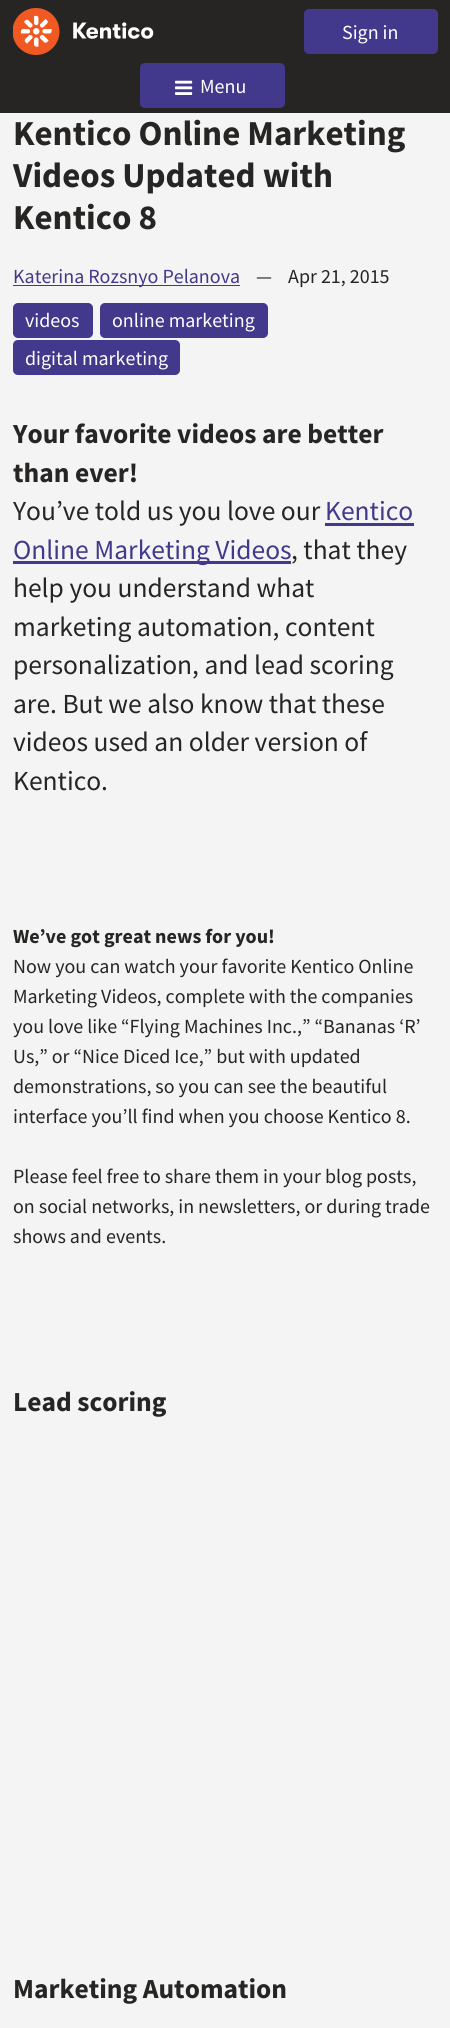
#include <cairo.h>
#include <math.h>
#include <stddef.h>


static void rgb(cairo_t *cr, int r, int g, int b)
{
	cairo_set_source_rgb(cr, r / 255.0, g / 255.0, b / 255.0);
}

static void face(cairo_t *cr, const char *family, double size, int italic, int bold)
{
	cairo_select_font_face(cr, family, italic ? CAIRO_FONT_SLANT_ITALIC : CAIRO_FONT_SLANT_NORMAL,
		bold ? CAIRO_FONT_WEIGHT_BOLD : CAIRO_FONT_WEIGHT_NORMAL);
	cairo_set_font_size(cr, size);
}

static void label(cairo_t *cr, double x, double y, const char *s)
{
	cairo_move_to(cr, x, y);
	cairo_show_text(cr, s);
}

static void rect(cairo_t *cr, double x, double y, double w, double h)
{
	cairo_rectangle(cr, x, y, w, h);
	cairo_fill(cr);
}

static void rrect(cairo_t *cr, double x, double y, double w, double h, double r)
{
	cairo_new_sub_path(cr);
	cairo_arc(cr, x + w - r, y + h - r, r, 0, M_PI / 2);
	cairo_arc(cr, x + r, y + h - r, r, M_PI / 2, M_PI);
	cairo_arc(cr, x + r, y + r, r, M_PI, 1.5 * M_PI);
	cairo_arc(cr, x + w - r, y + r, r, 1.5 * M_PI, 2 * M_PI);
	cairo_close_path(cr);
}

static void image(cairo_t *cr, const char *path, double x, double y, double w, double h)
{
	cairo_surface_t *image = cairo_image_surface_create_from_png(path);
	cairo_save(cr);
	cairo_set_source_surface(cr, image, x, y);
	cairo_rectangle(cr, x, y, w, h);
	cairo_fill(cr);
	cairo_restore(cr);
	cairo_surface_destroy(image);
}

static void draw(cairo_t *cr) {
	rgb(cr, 244, 244, 244);
	cairo_paint(cr);
	rgb(cr, 38, 37, 36);
	rect(cr, 0, 0, 450, 113);
	image(cr, "image0.png", 13, 8, 141, 47);
	rgb(cr, 66, 56, 140);
	rrect(cr, 304, 9, 134, 45, 5);
	cairo_fill(cr);
	face(cr, "Source Sans Pro", 20, 0, 0);
	rgb(cr, 255, 255, 255);
	label(cr, 342, 39, "Sign in");
	rgb(cr, 66, 56, 140);
	rrect(cr, 140, 63, 145, 45, 5);
	cairo_fill(cr);
	image(cr, "image1.png", 175, 80, 18, 15);
	rgb(cr, 255, 255, 255);
	label(cr, 200, 93, "Menu");
	face(cr, "Source Sans Pro", 35, 0, 1);
	rgb(cr, 38, 37, 36);
	label(cr, 13, 145, "Kentico Online Marketing");
	cairo_save(cr);
	cairo_rectangle(cr, 13, 113, 425, 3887);
	cairo_clip(cr);
	label(cr, 13, 187, "Videos Updated with");
	cairo_restore(cr);
	label(cr, 13, 229, "Kentico 8");
	rgb(cr, 66, 56, 140);
	rect(cr, 13, 285, 227, 1);
	face(cr, "Source Sans Pro", 20, 0, 0);
	label(cr, 13, 283, "Katerina Rozsnyo Pelanova");
	rgb(cr, 38, 37, 36);
	label(cr, 256, 283, "—");
	label(cr, 288, 283, "Apr 21, 2015");
	rgb(cr, 66, 56, 140);
	rrect(cr, 13, 303, 80, 35, 5);
	cairo_fill(cr);
	rgb(cr, 255, 255, 255);
	label(cr, 25, 327, "videos");
	rgb(cr, 66, 56, 140);
	rrect(cr, 100, 303, 168, 35, 5);
	cairo_fill(cr);
	rgb(cr, 255, 255, 255);
	label(cr, 112, 327, "online marketing");
	rgb(cr, 66, 56, 140);
	rrect(cr, 13, 340, 167, 35, 5);
	cairo_fill(cr);
	rgb(cr, 255, 255, 255);
	label(cr, 25, 365, "digital marketing");
	face(cr, "Source Sans Pro", 27.5, 0, 1);
	rgb(cr, 38, 37, 36);
	label(cr, 13, 443, "Your favorite videos are better");
	label(cr, 13, 482, "than ever!");
	face(cr, "Source Sans Pro", 27.5, 0, 0);
	label(cr, 13, 520, "You’ve told us you love our");
	rgb(cr, 66, 56, 140);
	label(cr, 325, 520, "Kentico");
	rect(cr, 325, 523, 89, 3);
	rect(cr, 13, 561, 278, 3);
	label(cr, 13, 559, "Online Marketing Videos");
	rgb(cr, 38, 37, 36);
	label(cr, 291, 559, ", that they");
	label(cr, 13, 597, "help you understand what");
	label(cr, 13, 636, "marketing automation, content");
	label(cr, 13, 674, "personalization, and lead scoring");
	label(cr, 13, 713, "are. But we also know that these");
	label(cr, 13, 751, "videos used an older version of");
	label(cr, 13, 790, "Kentico.");
	face(cr, "Source Sans Pro", 20, 0, 1);
	label(cr, 13, 943, "We’ve got great news for you!");
	face(cr, "Source Sans Pro", 20, 0, 0);
	label(cr, 13, 973, "Now you can watch your favorite Kentico Online");
	label(cr, 13, 1003, "Marketing Videos, complete with the companies");
	label(cr, 13, 1033, "you love like “Flying Machines Inc.,” “Bananas ‘R’");
	label(cr, 13, 1063, "Us,” or “Nice Diced Ice,” but with updated");
	label(cr, 13, 1093, "demonstrations, so you can see the beautiful");
	label(cr, 13, 1123, "interface you’ll find when you choose Kentico 8.");
	label(cr, 13, 1183, "Please feel free to share them in your blog posts,");
	label(cr, 13, 1213, "on social networks, in newsletters, or during trade");
	label(cr, 13, 1243, "shows and events.");
	face(cr, "Source Sans Pro", 27.5, 0, 1);
	label(cr, 13, 1411, "Lead scoring");
	label(cr, 13, 1998, "Marketing Automation");
}

int main(void) {
	cairo_surface_t *surface = cairo_image_surface_create(CAIRO_FORMAT_RGB24, 450, 2028);
	cairo_t *cr = cairo_create(surface);
	cairo_font_options_t *options = cairo_font_options_create();
	cairo_font_options_set_hint_metrics(options, CAIRO_HINT_METRICS_OFF);
	cairo_font_options_set_hint_style(options, CAIRO_HINT_STYLE_NONE);
	cairo_set_font_options(cr, options);
	cairo_set_miter_limit(cr, 4);
	draw(cr);
	cairo_surface_write_to_png(surface, "render.png");
	cairo_font_options_destroy(options);
	cairo_destroy(cr);
	cairo_surface_destroy(surface);
	return 0;
}
